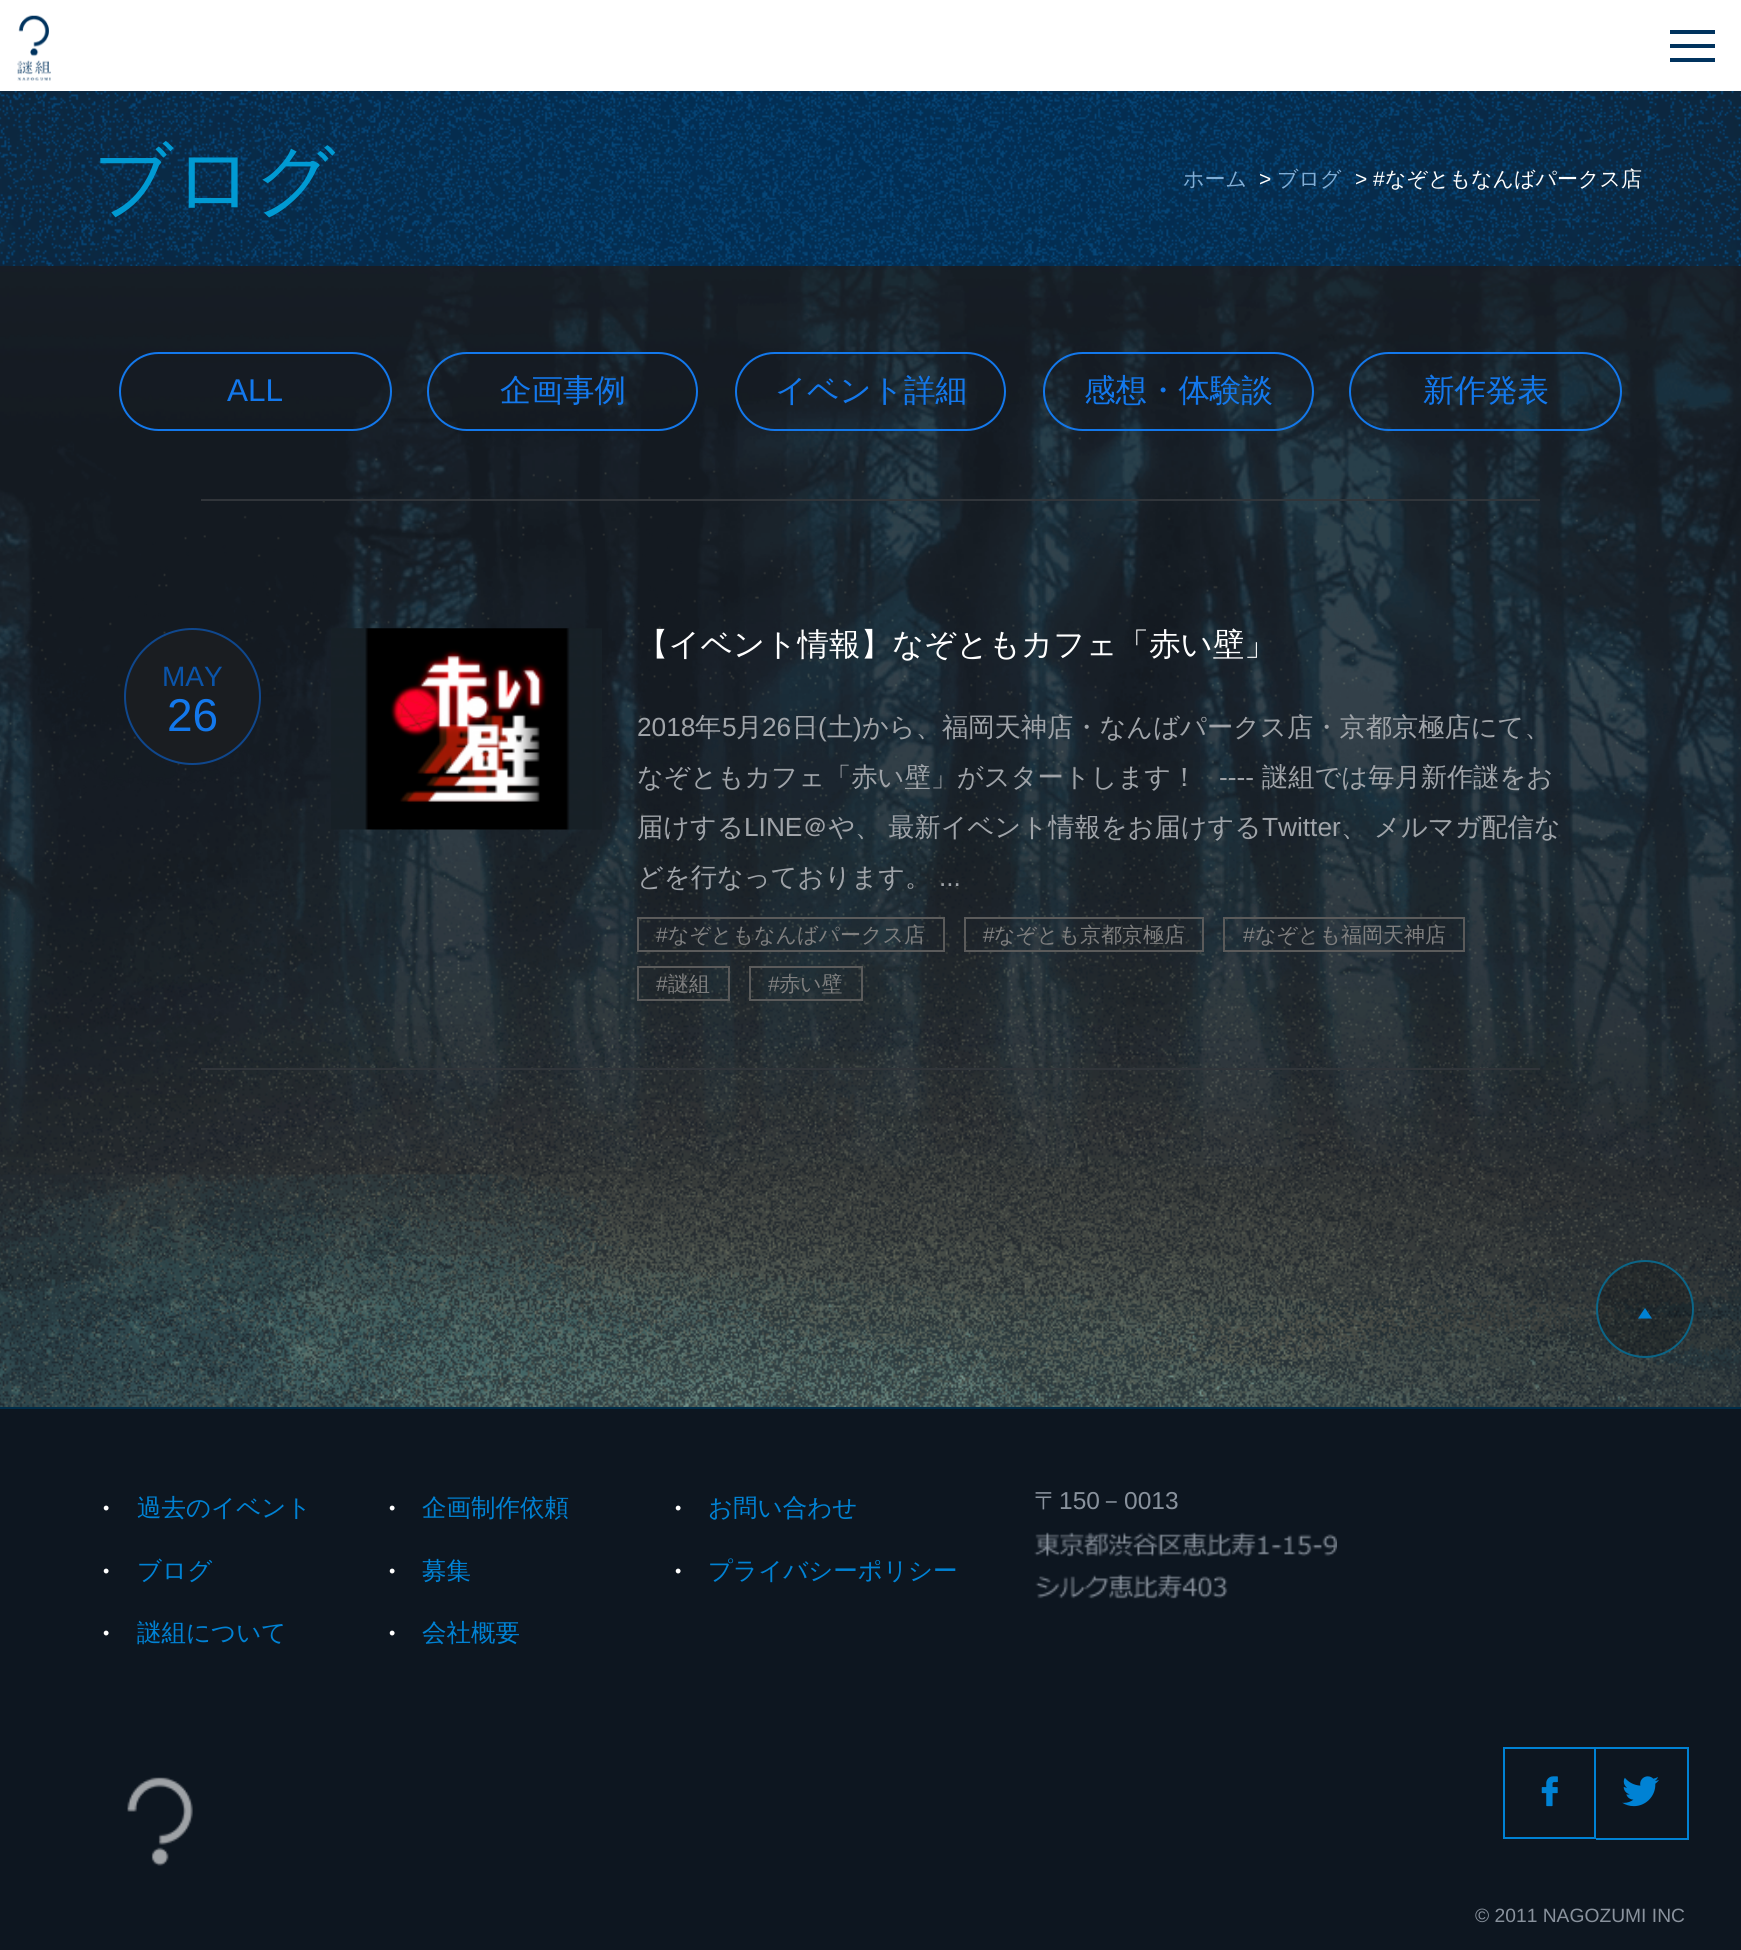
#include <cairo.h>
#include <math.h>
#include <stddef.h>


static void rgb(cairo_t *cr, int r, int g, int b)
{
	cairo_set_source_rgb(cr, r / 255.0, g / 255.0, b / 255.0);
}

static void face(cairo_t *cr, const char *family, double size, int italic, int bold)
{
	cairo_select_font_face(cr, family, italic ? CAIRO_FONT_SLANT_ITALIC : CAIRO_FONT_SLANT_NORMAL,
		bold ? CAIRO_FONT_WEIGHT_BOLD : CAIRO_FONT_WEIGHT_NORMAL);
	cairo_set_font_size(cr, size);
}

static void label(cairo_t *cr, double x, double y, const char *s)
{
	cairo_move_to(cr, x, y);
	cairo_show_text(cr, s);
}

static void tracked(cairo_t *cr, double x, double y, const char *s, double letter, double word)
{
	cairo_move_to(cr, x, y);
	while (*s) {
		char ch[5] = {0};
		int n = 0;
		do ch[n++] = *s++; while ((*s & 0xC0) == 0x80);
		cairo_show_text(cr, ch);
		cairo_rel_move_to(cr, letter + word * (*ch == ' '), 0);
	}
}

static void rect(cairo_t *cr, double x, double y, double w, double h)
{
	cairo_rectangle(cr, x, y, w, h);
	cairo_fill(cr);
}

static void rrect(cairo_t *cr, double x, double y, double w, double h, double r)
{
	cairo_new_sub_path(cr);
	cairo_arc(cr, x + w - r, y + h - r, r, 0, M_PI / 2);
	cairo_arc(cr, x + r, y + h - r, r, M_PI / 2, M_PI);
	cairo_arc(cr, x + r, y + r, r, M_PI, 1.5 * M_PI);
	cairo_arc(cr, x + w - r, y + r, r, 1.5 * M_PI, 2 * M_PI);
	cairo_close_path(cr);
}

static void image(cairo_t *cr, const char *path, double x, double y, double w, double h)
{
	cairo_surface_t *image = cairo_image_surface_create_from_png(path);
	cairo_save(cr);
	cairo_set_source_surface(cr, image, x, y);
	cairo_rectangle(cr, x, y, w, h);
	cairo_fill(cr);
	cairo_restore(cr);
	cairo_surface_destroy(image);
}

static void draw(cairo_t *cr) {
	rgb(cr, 24, 31, 39);
	cairo_paint(cr);
	image(cr, "image0.png", 0, 437, 1741, 970);
	rgb(cr, 255, 255, 255);
	rect(cr, 0, 0, 1741, 91);
	image(cr, "image1.png", 17, 15, 34, 66);
	rgb(cr, 0, 51, 94);
	rect(cr, 1670, 30, 45, 4);
	rect(cr, 1670, 44, 45, 4);
	rect(cr, 1670, 58, 45, 4);
	image(cr, "image2.png", 0, 191, 1741, 976);
	image(cr, "image3.png", 0, 91, 1741, 175);
	face(cr, "WenQuanYi Zen Hei Medium", 79, 0, 0);
	rgb(cr, 0, 154, 211);
	label(cr, 93, 207, "ブログ");
	face(cr, "WenQuanYi Zen Hei Medium", 21, 0, 0);
	rgb(cr, 129, 174, 214);
	label(cr, 1183, 186, "ホーム");
	face(cr, "Liberation Sans", 21, 0, 0);
	rgb(cr, 255, 255, 255);
	label(cr, 1259, 186, ">");
	face(cr, "WenQuanYi Zen Hei Medium", 21, 0, 0);
	rgb(cr, 129, 174, 214);
	label(cr, 1277, 186, "ブログ");
	face(cr, "Liberation Sans", 21, 0, 0);
	rgb(cr, 255, 255, 255);
	label(cr, 1355, 186, "> #");
	face(cr, "WenQuanYi Zen Hei Medium", 21, 0, 0);
	label(cr, 1385, 186, "なぞともなんばパークス店");
	rrect(cr, 120, 353, 271, 77, 38.5);
	rgb(cr, 19, 120, 236);
	cairo_stroke(cr);
	face(cr, "Liberation Sans", 31.5, 0, 0);
	label(cr, 227, 401, "ALL");
	rrect(cr, 428, 353, 269, 77, 38.5);
	cairo_stroke(cr);
	face(cr, "WenQuanYi Zen Hei Medium", 31.5, 0, 0);
	label(cr, 500, 401, "企画事例");
	rrect(cr, 736, 353, 269, 77, 38.5);
	cairo_stroke(cr);
	label(cr, 775, 401, "イベント詳細");
	rrect(cr, 1044, 353, 269, 77, 38.5);
	cairo_stroke(cr);
	label(cr, 1084, 401, "感想・体験談");
	rrect(cr, 1350, 353, 271, 77, 38.5);
	cairo_stroke(cr);
	label(cr, 1423, 401, "新作発表");
	rgb(cr, 49, 53, 58);
	rect(cr, 201, 499, 1339, 2);
	rgb(cr, 26, 29, 33);
	cairo_new_path(cr);
	cairo_arc(cr, 192.5, 696.5, 67.5, 0, 2 * M_PI);
	cairo_fill_preserve(cr);
	rgb(cr, 15, 71, 141);
	cairo_stroke(cr);
	face(cr, "Liberation Sans", 28, 0, 0);
	rgb(cr, 10, 84, 170);
	label(cr, 162, 686, "MAY");
	face(cr, "Liberation Sans", 46, 0, 0);
	rgb(cr, 19, 120, 236);
	label(cr, 167, 731, "26");
	image(cr, "image4.png", 331, 628, 271, 202);
	face(cr, "WenQuanYi Zen Hei Medium", 31.5, 0, 0);
	rgb(cr, 255, 255, 255);
	label(cr, 637, 655, "【イベント情報】なぞともカフェ「赤い壁」");
	face(cr, "Liberation Sans", 26.25, 0, 0);
	rgb(cr, 160, 164, 169);
	label(cr, 637, 736, "2018");
	face(cr, "WenQuanYi Zen Hei Medium", 26.25, 0, 0);
	label(cr, 695, 736, "年");
	face(cr, "Liberation Sans", 26.25, 0, 0);
	label(cr, 722, 736, "5");
	face(cr, "WenQuanYi Zen Hei Medium", 26.25, 0, 0);
	label(cr, 736, 736, "月");
	face(cr, "Liberation Sans", 26.25, 0, 0);
	label(cr, 762, 736, "26");
	face(cr, "WenQuanYi Zen Hei Medium", 26.25, 0, 0);
	label(cr, 792, 736, "日");
	face(cr, "Liberation Sans", 26.25, 0, 0);
	label(cr, 818, 736, "(");
	face(cr, "WenQuanYi Zen Hei Medium", 26.25, 0, 0);
	label(cr, 827, 736, "土");
	face(cr, "Liberation Sans", 26.25, 0, 0);
	label(cr, 853, 736, ")");
	face(cr, "WenQuanYi Zen Hei Medium", 26.25, 0, 0);
	label(cr, 862, 736, "から、福岡天神店・なんばパークス店・京都京極店にて、");
	label(cr, 637, 786, "なぞともカフェ「赤い壁」がスタートします！");
	face(cr, "Liberation Sans", 26.25, 0, 0);
	label(cr, 1219, 786, "----");
	face(cr, "WenQuanYi Zen Hei Medium", 26.25, 0, 0);
	label(cr, 1262, 786, "謎組では毎月新作謎をお");
	label(cr, 637, 836, "届けする");
	face(cr, "Liberation Sans", 26.25, 0, 0);
	label(cr, 744, 836, "LINE");
	face(cr, "WenQuanYi Zen Hei Medium", 26.25, 0, 0);
	tracked(cr, 802, 836, "＠や、 最新イベント情報をお届けする", 0, -1);
	face(cr, "Liberation Sans", 26.25, 0, 0);
	label(cr, 1262, 836, "Twitter");
	face(cr, "WenQuanYi Zen Hei Medium", 26.25, 0, 0);
	tracked(cr, 1341, 836, "、 メルマガ配信な", 0, -1);
	label(cr, 637, 886, "どを行なっております。");
	face(cr, "Liberation Sans", 26.25, 0, 0);
	label(cr, 939, 886, "...");
	cairo_rectangle(cr, 638, 918, 306, 33);
	rgb(cr, 91, 91, 91);
	cairo_stroke(cr);
	face(cr, "Liberation Sans", 21, 0, 0);
	rgb(cr, 127, 127, 127);
	label(cr, 656, 942, "#");
	face(cr, "WenQuanYi Zen Hei Medium", 21, 0, 0);
	label(cr, 668, 942, "なぞともなんばパークス店");
	cairo_rectangle(cr, 965, 918, 238, 33);
	rgb(cr, 91, 91, 91);
	cairo_stroke(cr);
	face(cr, "Liberation Sans", 21, 0, 0);
	rgb(cr, 127, 127, 127);
	label(cr, 983, 942, "#");
	face(cr, "WenQuanYi Zen Hei Medium", 21, 0, 0);
	label(cr, 994, 942, "なぞとも京都京極店");
	cairo_rectangle(cr, 1224, 918, 240, 33);
	rgb(cr, 91, 91, 91);
	cairo_stroke(cr);
	face(cr, "Liberation Sans", 21, 0, 0);
	rgb(cr, 127, 127, 127);
	label(cr, 1243, 942, "#");
	face(cr, "WenQuanYi Zen Hei Medium", 21, 0, 0);
	label(cr, 1255, 942, "なぞとも福岡天神店");
	cairo_rectangle(cr, 638, 967, 91, 33);
	rgb(cr, 91, 91, 91);
	cairo_stroke(cr);
	face(cr, "Liberation Sans", 21, 0, 0);
	rgb(cr, 127, 127, 127);
	label(cr, 656, 991, "#");
	face(cr, "WenQuanYi Zen Hei Medium", 21, 0, 0);
	label(cr, 668, 991, "謎組");
	cairo_rectangle(cr, 750, 967, 112, 33);
	rgb(cr, 91, 91, 91);
	cairo_stroke(cr);
	face(cr, "Liberation Sans", 21, 0, 0);
	rgb(cr, 127, 127, 127);
	label(cr, 768, 991, "#");
	face(cr, "WenQuanYi Zen Hei Medium", 21, 0, 0);
	label(cr, 779, 991, "赤い壁");
	rgb(cr, 49, 53, 58);
	rect(cr, 201, 1068, 1339, 2);
	cairo_set_source_rgba(cr, 0, 0, 0, 0.2);
	cairo_new_path(cr);
	cairo_arc(cr, 1645, 1309, 48, 0, 2 * M_PI);
	cairo_fill_preserve(cr);
	rgb(cr, 11, 101, 135);
	cairo_stroke(cr);
	rgb(cr, 0, 130, 212);
	cairo_new_path(cr);
	cairo_move_to(cr, 1645, 1308);
	cairo_line_to(cr, 1652, 1318.5);
	cairo_line_to(cr, 1638, 1318.5);
	cairo_close_path(cr);
	cairo_fill(cr);
	rgb(cr, 13, 22, 32);
	rect(cr, 0, 1409, 1741, 541);
	rgb(cr, 0, 45, 73);
	rect(cr, 0, 1407, 1741, 2);
	face(cr, "Liberation Sans", 18, 0, 0);
	rgb(cr, 255, 255, 255);
	label(cr, 103, 1514, "•");
	face(cr, "WenQuanYi Zen Hei Medium", 24.5, 0, 0);
	rgb(cr, 0, 130, 212);
	label(cr, 137, 1516, "過去のイベント");
	face(cr, "Liberation Sans", 18, 0, 0);
	rgb(cr, 255, 255, 255);
	label(cr, 389, 1514, "•");
	face(cr, "WenQuanYi Zen Hei Medium", 24.5, 0, 0);
	rgb(cr, 0, 130, 212);
	label(cr, 422, 1516, "企画制作依頼");
	face(cr, "Liberation Sans", 18, 0, 0);
	rgb(cr, 255, 255, 255);
	label(cr, 675, 1514, "•");
	face(cr, "WenQuanYi Zen Hei Medium", 24.5, 0, 0);
	rgb(cr, 0, 130, 212);
	label(cr, 708, 1516, "お問い合わせ");
	face(cr, "Liberation Sans", 18, 0, 0);
	rgb(cr, 255, 255, 255);
	label(cr, 103, 1577, "•");
	face(cr, "WenQuanYi Zen Hei Medium", 24.5, 0, 0);
	rgb(cr, 0, 130, 212);
	label(cr, 137, 1579, "ブログ");
	face(cr, "Liberation Sans", 18, 0, 0);
	rgb(cr, 255, 255, 255);
	label(cr, 389, 1577, "•");
	face(cr, "WenQuanYi Zen Hei Medium", 24.5, 0, 0);
	rgb(cr, 0, 130, 212);
	label(cr, 422, 1579, "募集");
	face(cr, "Liberation Sans", 18, 0, 0);
	rgb(cr, 255, 255, 255);
	label(cr, 675, 1577, "•");
	face(cr, "WenQuanYi Zen Hei Medium", 24.5, 0, 0);
	rgb(cr, 0, 130, 212);
	label(cr, 708, 1579, "プライバシーポリシー");
	face(cr, "Liberation Sans", 18, 0, 0);
	rgb(cr, 255, 255, 255);
	label(cr, 103, 1639, "•");
	face(cr, "WenQuanYi Zen Hei Medium", 24.5, 0, 0);
	rgb(cr, 0, 130, 212);
	label(cr, 137, 1641, "謎組について");
	face(cr, "Liberation Sans", 18, 0, 0);
	rgb(cr, 255, 255, 255);
	label(cr, 389, 1639, "•");
	face(cr, "WenQuanYi Zen Hei Medium", 24.5, 0, 0);
	rgb(cr, 0, 130, 212);
	label(cr, 422, 1641, "会社概要");
	rgb(cr, 137, 146, 157);
	label(cr, 1034, 1509, "〒");
	face(cr, "Liberation Sans", 24.5, 0, 0);
	label(cr, 1059, 1509, "150");
	face(cr, "WenQuanYi Zen Hei Medium", 24.5, 0, 0);
	label(cr, 1099, 1509, "－");
	face(cr, "Liberation Sans", 24.5, 0, 0);
	label(cr, 1124, 1509, "0013");
	image(cr, "image5.png", 1034, 1532, 303, 67);
	image(cr, "image6.png", 127, 1777, 66, 89);
	cairo_rectangle(cr, 1504, 1748, 91, 90);
	rgb(cr, 0, 130, 212);
	cairo_stroke(cr);
	image(cr, "image7.png", 1541, 1776, 17, 31);
	rect(cr, 1596, 1747, 93, 2);
	rect(cr, 1687, 1747, 2, 92);
	rect(cr, 1596, 1838, 93, 2);
	image(cr, "image8.png", 1622, 1776, 37, 31);
	face(cr, "Liberation Sans", 19.25, 0, 0);
	rgb(cr, 137, 146, 157);
	label(cr, 1475, 1922, "© 2011 NAGOZUMI INC");
}

int main(void) {
	cairo_surface_t *surface = cairo_image_surface_create(CAIRO_FORMAT_RGB24, 1741, 1950);
	cairo_t *cr = cairo_create(surface);
	cairo_font_options_t *options = cairo_font_options_create();
	cairo_font_options_set_hint_metrics(options, CAIRO_HINT_METRICS_OFF);
	cairo_font_options_set_hint_style(options, CAIRO_HINT_STYLE_NONE);
	cairo_set_font_options(cr, options);
	cairo_set_miter_limit(cr, 4);
	draw(cr);
	cairo_surface_write_to_png(surface, "render.png");
	cairo_font_options_destroy(options);
	cairo_destroy(cr);
	cairo_surface_destroy(surface);
	return 0;
}
